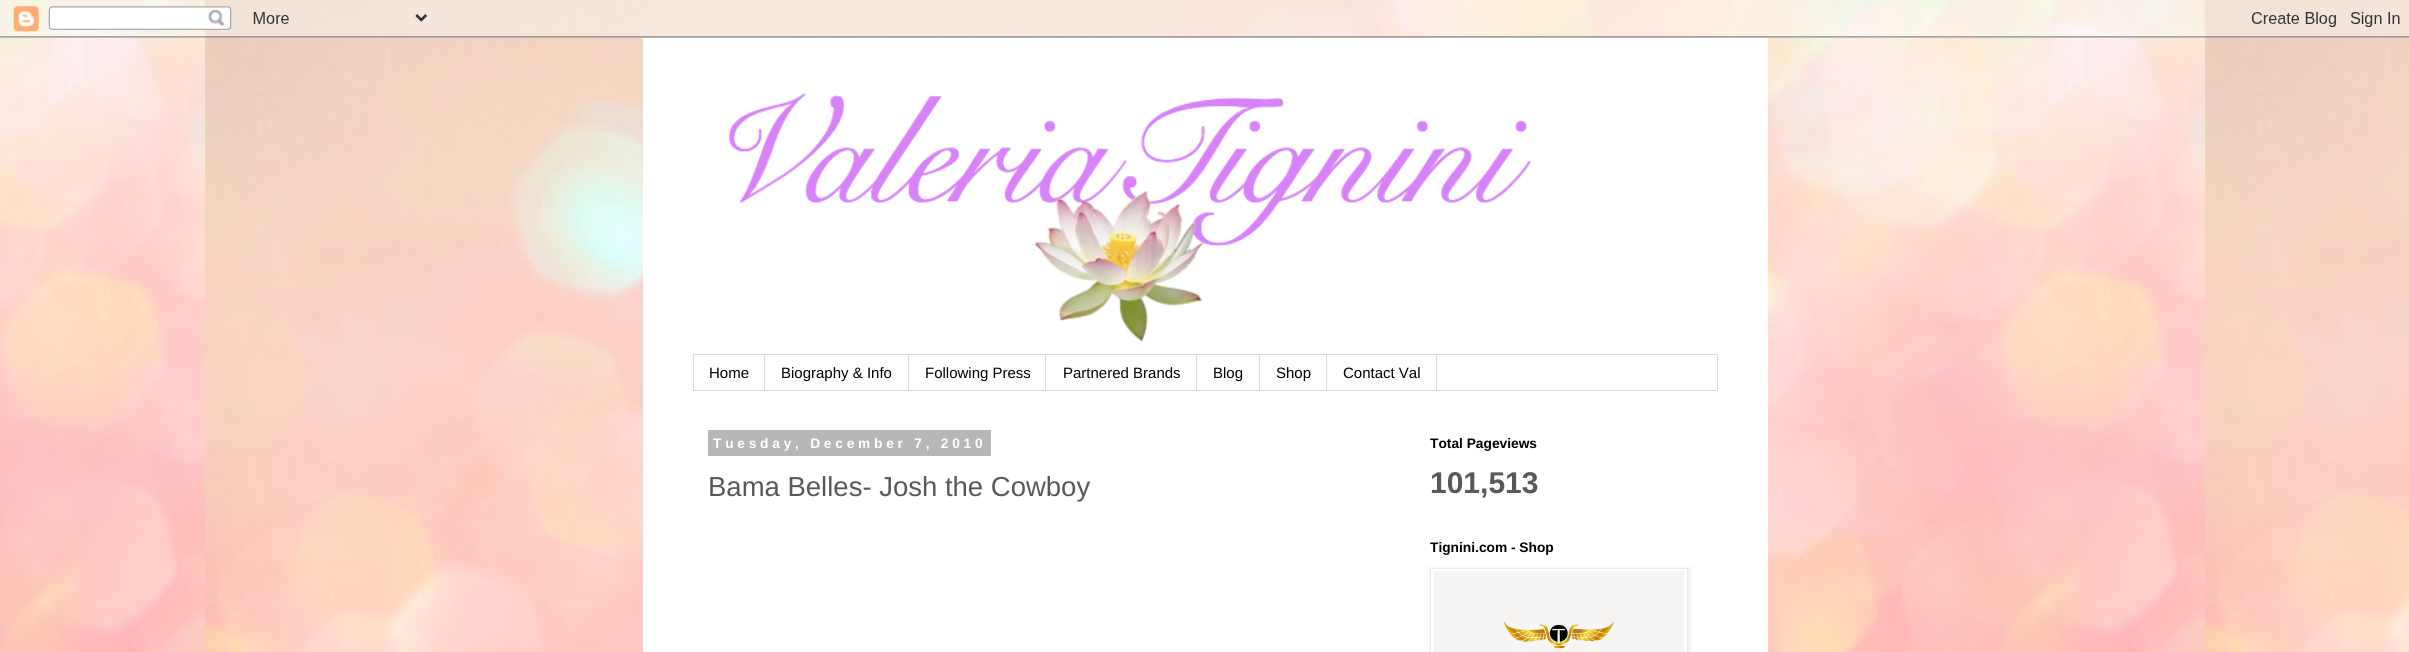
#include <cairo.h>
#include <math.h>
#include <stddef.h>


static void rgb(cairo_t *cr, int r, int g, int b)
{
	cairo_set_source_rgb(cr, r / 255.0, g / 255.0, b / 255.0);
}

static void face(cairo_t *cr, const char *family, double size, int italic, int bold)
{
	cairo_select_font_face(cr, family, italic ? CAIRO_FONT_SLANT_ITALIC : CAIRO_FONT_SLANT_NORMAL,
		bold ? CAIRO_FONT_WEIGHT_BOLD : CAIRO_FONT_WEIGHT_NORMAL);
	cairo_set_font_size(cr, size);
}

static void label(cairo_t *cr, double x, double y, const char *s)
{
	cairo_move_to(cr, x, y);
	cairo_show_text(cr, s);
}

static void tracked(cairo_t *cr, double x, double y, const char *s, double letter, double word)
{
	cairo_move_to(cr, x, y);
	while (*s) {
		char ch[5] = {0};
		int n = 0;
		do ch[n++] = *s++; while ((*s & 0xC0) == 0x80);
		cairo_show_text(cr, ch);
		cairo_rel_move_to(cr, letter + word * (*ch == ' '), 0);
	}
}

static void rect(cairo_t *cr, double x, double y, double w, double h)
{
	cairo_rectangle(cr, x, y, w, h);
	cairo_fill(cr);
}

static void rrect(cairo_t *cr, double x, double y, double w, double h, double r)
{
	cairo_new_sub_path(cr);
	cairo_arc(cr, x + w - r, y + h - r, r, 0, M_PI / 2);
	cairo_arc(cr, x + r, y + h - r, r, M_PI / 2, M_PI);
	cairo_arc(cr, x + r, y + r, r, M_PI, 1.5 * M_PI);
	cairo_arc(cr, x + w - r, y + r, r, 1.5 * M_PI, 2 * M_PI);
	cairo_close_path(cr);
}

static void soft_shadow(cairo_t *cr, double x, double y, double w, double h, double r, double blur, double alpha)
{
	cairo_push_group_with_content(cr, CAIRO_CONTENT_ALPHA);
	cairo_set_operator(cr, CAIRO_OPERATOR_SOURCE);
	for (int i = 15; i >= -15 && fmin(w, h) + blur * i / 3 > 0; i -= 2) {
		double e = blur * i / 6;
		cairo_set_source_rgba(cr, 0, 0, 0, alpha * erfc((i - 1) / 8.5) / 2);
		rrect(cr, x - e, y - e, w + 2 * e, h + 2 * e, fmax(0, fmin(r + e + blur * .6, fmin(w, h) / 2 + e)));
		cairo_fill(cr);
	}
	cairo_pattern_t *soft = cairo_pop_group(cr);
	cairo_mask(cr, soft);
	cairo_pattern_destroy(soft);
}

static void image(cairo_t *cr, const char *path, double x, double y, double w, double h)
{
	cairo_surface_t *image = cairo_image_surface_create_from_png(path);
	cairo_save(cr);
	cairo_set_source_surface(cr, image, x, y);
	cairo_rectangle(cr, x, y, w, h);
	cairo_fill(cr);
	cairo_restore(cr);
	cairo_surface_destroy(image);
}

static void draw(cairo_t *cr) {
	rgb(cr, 255, 255, 255);
	cairo_paint(cr);
	image(cr, "image0.png", 0, 0, 2409, 652);
	image(cr, "image1.png", 0, 0, 2409, 38);
	rgb(cr, 255, 255, 255);
	rect(cr, 643, 38, 1125, 614);
	image(cr, "image2.png", 728, 93, 804, 249);
	cairo_rectangle(cr, 693.5, 354.5, 1024, 36);
	rgb(cr, 218, 218, 218);
	cairo_set_line_width(cr, 1);
	cairo_stroke(cr);
	rect(cr, 764, 355, 1, 35);
	face(cr, "Liberation Sans", 15, 0, 0);
	rgb(cr, 0, 0, 0);
	label(cr, 709, 378, "Home");
	rgb(cr, 218, 218, 218);
	rect(cr, 908, 355, 1, 35);
	rgb(cr, 0, 0, 0);
	label(cr, 781, 378, "Biography & Info");
	rgb(cr, 218, 218, 218);
	rect(cr, 1045, 355, 1, 35);
	rgb(cr, 0, 0, 0);
	label(cr, 925, 378, "Following Press");
	rgb(cr, 218, 218, 218);
	rect(cr, 1196, 355, 1, 35);
	rgb(cr, 0, 0, 0);
	label(cr, 1063, 378, "Partnered Brands");
	rgb(cr, 218, 218, 218);
	rect(cr, 1259, 355, 1, 35);
	rgb(cr, 0, 0, 0);
	label(cr, 1213, 378, "Blog");
	rgb(cr, 218, 218, 218);
	rect(cr, 1326, 355, 1, 35);
	rgb(cr, 0, 0, 0);
	label(cr, 1276, 378, "Shop");
	rgb(cr, 218, 218, 218);
	rect(cr, 1436, 355, 1, 35);
	rgb(cr, 0, 0, 0);
	label(cr, 1343, 378, "Contact Val");
	rgb(cr, 183, 183, 183);
	rect(cr, 708, 430, 283, 26);
	face(cr, "Liberation Sans", 13.75, 0, 1);
	rgb(cr, 255, 255, 255);
	tracked(cr, 713, 448, "Tuesday, December 7, 2010", 3.75, 0);
	face(cr, "Liberation Sans", 27.5, 0, 0);
	rgb(cr, 89, 89, 89);
	label(cr, 708, 496, "Bama Belles- Josh the Cowboy");
	face(cr, "Liberation Sans", 13.75, 0, 1);
	rgb(cr, 0, 0, 0);
	label(cr, 1430, 448, "Total Pageviews");
	face(cr, "Liberation Sans", 30, 0, 1);
	rgb(cr, 89, 89, 89);
	label(cr, 1430, 493, "101,513");
	face(cr, "Liberation Sans", 13.75, 0, 1);
	rgb(cr, 0, 0, 0);
	label(cr, 1430, 552, "Tignini.com - Shop");
	rgb(cr, 0, 0, 0);
	soft_shadow(cr, 1431, 569, 258, 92, 0, 3, 0.1);
	rgb(cr, 255, 255, 255);
	cairo_rectangle(cr, 1430.5, 568.5, 257, 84);
	cairo_fill_preserve(cr);
	rgb(cr, 235, 235, 235);
	cairo_stroke(cr);
	image(cr, "image3.png", 1434, 571, 250, 81);
}

int main(void) {
	cairo_surface_t *surface = cairo_image_surface_create(CAIRO_FORMAT_RGB24, 2409, 652);
	cairo_t *cr = cairo_create(surface);
	cairo_font_options_t *options = cairo_font_options_create();
	cairo_font_options_set_hint_metrics(options, CAIRO_HINT_METRICS_OFF);
	cairo_font_options_set_hint_style(options, CAIRO_HINT_STYLE_NONE);
	cairo_set_font_options(cr, options);
	cairo_set_miter_limit(cr, 4);
	draw(cr);
	cairo_surface_write_to_png(surface, "render.png");
	cairo_font_options_destroy(options);
	cairo_destroy(cr);
	cairo_surface_destroy(surface);
	return 0;
}
